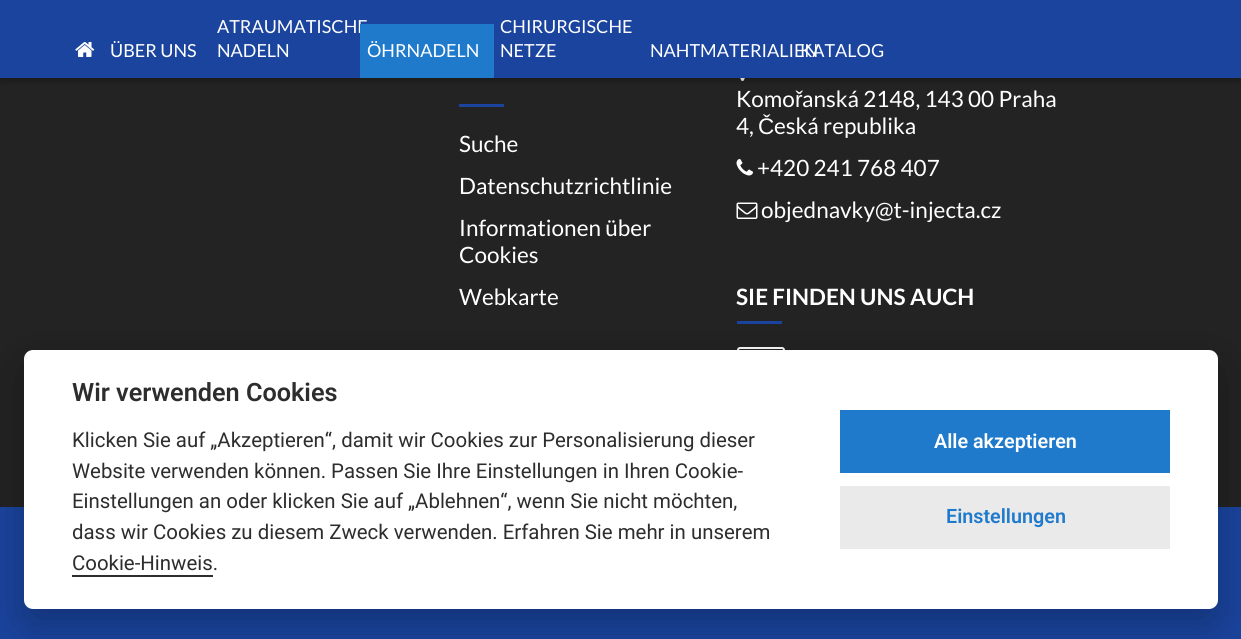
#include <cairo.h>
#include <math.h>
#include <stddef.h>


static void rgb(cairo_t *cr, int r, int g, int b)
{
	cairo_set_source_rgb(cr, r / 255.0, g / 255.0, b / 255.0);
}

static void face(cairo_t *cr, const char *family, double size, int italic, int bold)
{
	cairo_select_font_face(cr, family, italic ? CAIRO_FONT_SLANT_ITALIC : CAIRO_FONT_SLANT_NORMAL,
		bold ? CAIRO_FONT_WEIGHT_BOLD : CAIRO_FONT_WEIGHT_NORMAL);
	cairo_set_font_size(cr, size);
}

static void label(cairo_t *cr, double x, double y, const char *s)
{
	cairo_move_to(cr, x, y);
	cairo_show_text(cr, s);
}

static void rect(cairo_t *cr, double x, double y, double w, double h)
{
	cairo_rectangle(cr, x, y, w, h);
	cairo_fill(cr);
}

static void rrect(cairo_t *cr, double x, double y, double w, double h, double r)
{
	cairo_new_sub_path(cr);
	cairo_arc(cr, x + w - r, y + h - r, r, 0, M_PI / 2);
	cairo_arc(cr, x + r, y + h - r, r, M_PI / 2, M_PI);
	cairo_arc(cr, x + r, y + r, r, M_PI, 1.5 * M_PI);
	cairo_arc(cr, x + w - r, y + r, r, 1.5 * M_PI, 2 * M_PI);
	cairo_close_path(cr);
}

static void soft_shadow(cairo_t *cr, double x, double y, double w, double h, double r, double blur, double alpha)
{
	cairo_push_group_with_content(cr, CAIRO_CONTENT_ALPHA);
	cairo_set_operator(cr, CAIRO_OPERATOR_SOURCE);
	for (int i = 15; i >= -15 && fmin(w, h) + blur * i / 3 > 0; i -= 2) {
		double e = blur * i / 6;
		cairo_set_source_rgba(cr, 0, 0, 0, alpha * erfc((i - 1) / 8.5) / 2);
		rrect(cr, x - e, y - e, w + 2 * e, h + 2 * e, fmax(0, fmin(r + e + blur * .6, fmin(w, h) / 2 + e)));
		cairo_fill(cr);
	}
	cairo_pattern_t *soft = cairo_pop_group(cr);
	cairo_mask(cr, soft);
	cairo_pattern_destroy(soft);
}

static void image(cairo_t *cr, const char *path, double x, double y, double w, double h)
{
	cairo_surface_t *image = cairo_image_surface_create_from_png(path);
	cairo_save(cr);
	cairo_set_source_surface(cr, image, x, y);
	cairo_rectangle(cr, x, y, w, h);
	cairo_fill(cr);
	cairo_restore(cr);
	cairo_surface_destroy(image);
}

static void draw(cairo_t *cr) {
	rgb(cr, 35, 35, 35);
	cairo_paint(cr);
	image(cr, "image1.png", 740, 78, 5, 3);
	rgb(cr, 0, 0, 0);
	soft_shadow(cr, 0, 2, 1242, 78, 0, 4, 0.3);
	rgb(cr, 26, 68, 158);
	rect(cr, 0, 0, 1241, 78);
	image(cr, "image0.png", 75, 42, 20, 15);
	face(cr, "Lato", 18, 0, 0);
	rgb(cr, 255, 255, 255);
	label(cr, 110, 57, "ÜBER UNS");
	label(cr, 217, 33, "ATRAUMATISCHE");
	label(cr, 217, 57, "NADELN");
	rgb(cr, 31, 122, 204);
	rect(cr, 360, 24, 134, 54);
	rgb(cr, 255, 255, 255);
	label(cr, 367, 57, "ÖHRNADELN");
	label(cr, 500, 33, "CHIRURGISCHE");
	label(cr, 500, 57, "NETZE");
	label(cr, 650, 57, "NAHTMATERIALIEN");
	label(cr, 800, 57, "KATALOG");
	rgb(cr, 26, 68, 158);
	rect(cr, 459, 104, 45, 3);
	face(cr, "Lato", 22.5, 0, 0);
	rgb(cr, 255, 255, 255);
	label(cr, 459, 152, "Suche");
	label(cr, 459, 194, "Datenschutzrichtlinie");
	label(cr, 459, 236, "Informationen über");
	label(cr, 459, 263, "Cookies");
	label(cr, 459, 305, "Webkarte");
	label(cr, 736, 107, "Komo");
	face(cr, "Liberation Sans", 22.5, 0, 0);
	label(cr, 795, 107, "ř");
	face(cr, "Lato", 22.5, 0, 0);
	label(cr, 802, 107, "anská 2148, 143 00 Praha");
	label(cr, 736, 134, "4,");
	face(cr, "Liberation Sans", 22.5, 0, 0);
	label(cr, 758, 134, "Č");
	face(cr, "Lato", 22.5, 0, 0);
	label(cr, 774, 134, "eská republika");
	image(cr, "image2.png", 736, 159, 17, 17);
	label(cr, 757, 176, "+420 241 768 407");
	image(cr, "image3.png", 736, 202, 22, 17);
	label(cr, 761, 218, "objednavky@t-injecta.cz");
	face(cr, "Lato", 22.5, 0, 1);
	label(cr, 736, 305, "SIE FINDEN UNS AUCH");
	rgb(cr, 26, 68, 158);
	rect(cr, 737, 321, 45, 3);
	rrect(cr, 738, 348, 46, 46, 2);
	rgb(cr, 255, 255, 255);
	cairo_stroke(cr);
	rgb(cr, 26, 68, 158);
	rect(cr, 0, 507, 1241, 132);
	rgb(cr, 2, 2, 3);
	soft_shadow(cr, 24, 365, 1194, 259, 9, 22.5, 0.28);
	rgb(cr, 255, 255, 255);
	rrect(cr, 24, 350, 1194, 259, 9);
	cairo_fill(cr);
	face(cr, "Roboto SemiBold", 25.25, 0, 0);
	rgb(cr, 45, 45, 45);
	label(cr, 72, 401, "Wir verwenden Cookies");
	face(cr, "Roboto", 20.4, 0, 0);
	label(cr, 72, 447, "Klicken Sie auf „Akzeptieren“, damit wir Cookies zur Personalisierung dieser");
	label(cr, 72, 478, "Website verwenden können. Passen Sie Ihre Einstellungen in Ihren Cookie-");
	label(cr, 72, 508, "Einstellungen an oder klicken Sie auf „Ablehnen“, wenn Sie nicht möchten,");
	label(cr, 72, 539, "dass wir Cookies zu diesem Zweck verwenden. Erfahren Sie mehr in unserem");
	label(cr, 72, 570, "Cookie-Hinweis.");
	rect(cr, 72, 575, 141, 2);
	rgb(cr, 31, 122, 204);
	rect(cr, 840, 410, 330, 63);
	face(cr, "Roboto SemiBold", 19.75, 0, 0);
	rgb(cr, 255, 255, 255);
	label(cr, 934, 448, "Alle akzeptieren");
	rgb(cr, 234, 234, 234);
	rect(cr, 840, 486, 330, 63);
	rgb(cr, 31, 122, 204);
	label(cr, 946, 523, "Einstellungen");
}

int main(void) {
	cairo_surface_t *surface = cairo_image_surface_create(CAIRO_FORMAT_RGB24, 1241, 639);
	cairo_t *cr = cairo_create(surface);
	cairo_font_options_t *options = cairo_font_options_create();
	cairo_font_options_set_hint_metrics(options, CAIRO_HINT_METRICS_OFF);
	cairo_font_options_set_hint_style(options, CAIRO_HINT_STYLE_NONE);
	cairo_set_font_options(cr, options);
	cairo_set_miter_limit(cr, 4);
	draw(cr);
	cairo_surface_write_to_png(surface, "render.png");
	cairo_font_options_destroy(options);
	cairo_destroy(cr);
	cairo_surface_destroy(surface);
	return 0;
}
